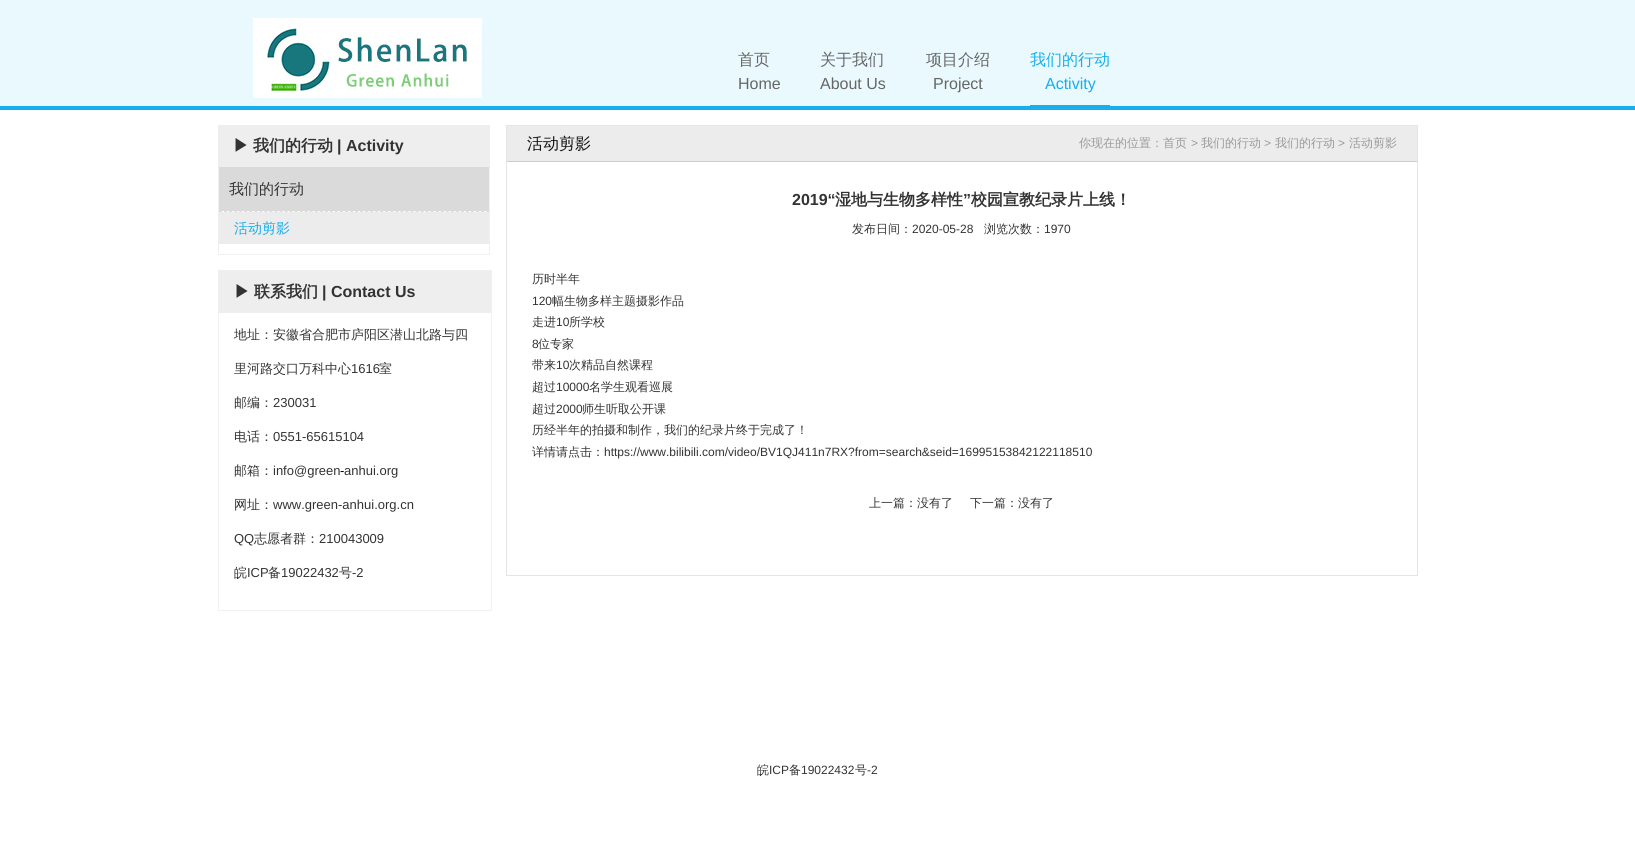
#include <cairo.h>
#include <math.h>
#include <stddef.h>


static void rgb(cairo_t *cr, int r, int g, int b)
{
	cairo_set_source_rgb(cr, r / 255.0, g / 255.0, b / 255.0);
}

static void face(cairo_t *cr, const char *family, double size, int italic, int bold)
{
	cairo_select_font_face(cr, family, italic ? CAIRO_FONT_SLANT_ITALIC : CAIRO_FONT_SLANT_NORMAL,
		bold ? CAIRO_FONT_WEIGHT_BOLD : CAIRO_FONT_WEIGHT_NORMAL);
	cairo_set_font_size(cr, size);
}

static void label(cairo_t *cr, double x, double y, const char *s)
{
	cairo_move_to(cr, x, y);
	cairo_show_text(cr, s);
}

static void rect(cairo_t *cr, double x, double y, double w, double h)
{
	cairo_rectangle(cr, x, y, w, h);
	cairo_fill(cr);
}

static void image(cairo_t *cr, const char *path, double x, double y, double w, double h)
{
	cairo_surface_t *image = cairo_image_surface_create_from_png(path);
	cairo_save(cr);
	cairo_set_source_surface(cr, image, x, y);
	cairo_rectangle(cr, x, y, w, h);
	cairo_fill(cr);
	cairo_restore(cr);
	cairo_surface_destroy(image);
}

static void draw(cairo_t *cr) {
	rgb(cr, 255, 255, 255);
	cairo_paint(cr);
	rgb(cr, 234, 249, 254);
	rect(cr, 0, 0, 1635, 106);
	rgb(cr, 22, 174, 237);
	rect(cr, 0, 106, 1635, 4);
	image(cr, "image0.png", 253, 18, 229, 80);
	face(cr, "WenQuanYi Zen Hei Medium", 16, 0, 0);
	rgb(cr, 102, 102, 102);
	label(cr, 738, 65, "首页");
	face(cr, "Liberation Sans", 16, 0, 0);
	label(cr, 738, 89, "Home");
	face(cr, "WenQuanYi Zen Hei Medium", 16, 0, 0);
	label(cr, 820, 65, "关于我们");
	face(cr, "Liberation Sans", 16, 0, 0);
	label(cr, 820, 89, "About Us");
	face(cr, "WenQuanYi Zen Hei Medium", 16, 0, 0);
	label(cr, 926, 65, "项目介绍");
	face(cr, "Liberation Sans", 16, 0, 0);
	label(cr, 933, 89, "Project");
	rgb(cr, 22, 174, 237);
	rect(cr, 1030, 105, 80, 1);
	face(cr, "WenQuanYi Zen Hei Medium", 16, 0, 0);
	label(cr, 1030, 65, "我们的行动");
	face(cr, "Liberation Sans", 16, 0, 0);
	label(cr, 1045, 89, "Activity");
	rgb(cr, 238, 238, 238);
	rect(cr, 218, 125, 272, 42);
	face(cr, "WenQuanYi Zen Hei", 16, 0, 1);
	rgb(cr, 51, 51, 51);
	label(cr, 233, 151, "▶");
	label(cr, 253, 151, "我们的行动");
	face(cr, "Liberation Sans", 16, 0, 1);
	label(cr, 337, 151, "| Activity");
	rgb(cr, 240, 240, 240);
	rect(cr, 489, 167, 1, 88);
	rect(cr, 218, 254, 272, 1);
	rect(cr, 218, 167, 1, 88);
	cairo_new_path(cr);
	cairo_move_to(cr, 219, 211.5);
	cairo_line_to(cr, 489, 211.5);
	rgb(cr, 221, 221, 221);
	cairo_set_line_width(cr, 1);
	cairo_set_dash(cr, (double[]){3, 2.04}, 2, 0);
	cairo_stroke(cr);
	rgb(cr, 218, 218, 218);
	rect(cr, 219, 167, 270, 44);
	face(cr, "WenQuanYi Zen Hei Medium", 15, 0, 0);
	rgb(cr, 51, 51, 51);
	label(cr, 229, 194, "我们的行动");
	rgb(cr, 236, 236, 236);
	rect(cr, 219, 212, 270, 32);
	face(cr, "WenQuanYi Zen Hei Medium", 14, 0, 0);
	rgb(cr, 22, 174, 237);
	label(cr, 234, 233, "活动剪影");
	cairo_rectangle(cr, 218.5, 270.5, 273, 340);
	rgb(cr, 240, 240, 240);
	cairo_set_dash(cr, NULL, 0, 0);
	cairo_stroke(cr);
	rgb(cr, 238, 238, 238);
	rect(cr, 219, 271, 272, 42);
	face(cr, "WenQuanYi Zen Hei", 16, 0, 1);
	rgb(cr, 51, 51, 51);
	label(cr, 234, 297, "▶");
	label(cr, 254, 297, "联系我们");
	face(cr, "Liberation Sans", 16, 0, 1);
	label(cr, 322, 297, "| Contact Us");
	face(cr, "WenQuanYi Zen Hei Medium", 13, 0, 0);
	label(cr, 234, 339, "地址：安徽省合肥市庐阳区潜山北路与四");
	label(cr, 234, 373, "里河路交口万科中心");
	face(cr, "Liberation Sans", 13, 0, 0);
	label(cr, 351, 373, "1616");
	face(cr, "WenQuanYi Zen Hei Medium", 13, 0, 0);
	label(cr, 379, 373, "室");
	label(cr, 234, 407, "邮编：");
	face(cr, "Liberation Sans", 13, 0, 0);
	label(cr, 273, 407, "230031");
	face(cr, "WenQuanYi Zen Hei Medium", 13, 0, 0);
	label(cr, 234, 441, "电话：");
	face(cr, "Liberation Sans", 13, 0, 0);
	label(cr, 273, 441, "0551-65615104");
	face(cr, "WenQuanYi Zen Hei Medium", 13, 0, 0);
	label(cr, 234, 475, "邮箱：");
	face(cr, "Liberation Sans", 13, 0, 0);
	label(cr, 273, 475, "info@green");
	rgb(cr, 0, 0, 0);
	label(cr, 340, 475, "-");
	rgb(cr, 51, 51, 51);
	label(cr, 344, 475, "anhui.org");
	face(cr, "WenQuanYi Zen Hei Medium", 13, 0, 0);
	label(cr, 234, 509, "网址：");
	face(cr, "Liberation Sans", 13, 0, 0);
	label(cr, 273, 509, "www.green-anhui.org.cn");
	label(cr, 234, 543, "QQ");
	face(cr, "WenQuanYi Zen Hei Medium", 13, 0, 0);
	label(cr, 254, 543, "志愿者群：");
	face(cr, "Liberation Sans", 13, 0, 0);
	label(cr, 319, 543, "210043009");
	face(cr, "WenQuanYi Zen Hei Medium", 13, 0, 0);
	label(cr, 234, 577, "皖");
	face(cr, "Liberation Sans", 13, 0, 0);
	label(cr, 247, 577, "ICP");
	face(cr, "WenQuanYi Zen Hei Medium", 13, 0, 0);
	label(cr, 268, 577, "备");
	face(cr, "Liberation Sans", 13, 0, 0);
	label(cr, 281, 577, "19022432");
	face(cr, "WenQuanYi Zen Hei Medium", 13, 0, 0);
	label(cr, 339, 577, "号");
	face(cr, "Liberation Sans", 13, 0, 0);
	label(cr, 352, 577, "-2");
	cairo_rectangle(cr, 506.5, 125.5, 911, 450);
	rgb(cr, 229, 229, 229);
	cairo_stroke(cr);
	rgb(cr, 236, 236, 236);
	rect(cr, 507, 126, 910, 35);
	rgb(cr, 204, 204, 204);
	rect(cr, 507, 161, 910, 1);
	face(cr, "WenQuanYi Zen Hei Medium", 16, 0, 0);
	rgb(cr, 17, 17, 17);
	label(cr, 527, 149, "活动剪影");
	face(cr, "WenQuanYi Zen Hei Medium", 12, 0, 0);
	rgb(cr, 153, 153, 153);
	label(cr, 1079, 147, "你现在的位置：首页");
	face(cr, "Liberation Sans", 12, 0, 0);
	label(cr, 1191, 147, ">");
	face(cr, "WenQuanYi Zen Hei Medium", 12, 0, 0);
	label(cr, 1201, 147, "我们的行动");
	face(cr, "Liberation Sans", 12, 0, 0);
	label(cr, 1264, 147, ">");
	face(cr, "WenQuanYi Zen Hei Medium", 12, 0, 0);
	label(cr, 1275, 147, "我们的行动");
	face(cr, "Liberation Sans", 12, 0, 0);
	label(cr, 1338, 147, ">");
	face(cr, "WenQuanYi Zen Hei Medium", 12, 0, 0);
	label(cr, 1349, 147, "活动剪影");
	face(cr, "Liberation Sans", 16, 0, 1);
	rgb(cr, 51, 51, 51);
	label(cr, 792, 205, "2019“");
	face(cr, "WenQuanYi Zen Hei", 16, 0, 1);
	label(cr, 835, 205, "湿地与生物多样性");
	face(cr, "Liberation Sans", 16, 0, 1);
	label(cr, 963, 205, "”");
	face(cr, "WenQuanYi Zen Hei", 16, 0, 1);
	label(cr, 971, 205, "校园宣教纪录片上线！");
	face(cr, "WenQuanYi Zen Hei Medium", 12, 0, 0);
	label(cr, 852, 233, "发布日间：");
	face(cr, "Liberation Sans", 12, 0, 0);
	label(cr, 912, 233, "2020-05-28");
	face(cr, "WenQuanYi Zen Hei Medium", 12, 0, 0);
	label(cr, 984, 233, "浏览次数：");
	face(cr, "Liberation Sans", 12, 0, 0);
	label(cr, 1044, 233, "1970");
	face(cr, "WenQuanYi Zen Hei Medium", 12, 0, 0);
	label(cr, 532, 283, "历时半年");
	face(cr, "Liberation Sans", 12, 0, 0);
	label(cr, 532, 305, "120");
	face(cr, "WenQuanYi Zen Hei Medium", 12, 0, 0);
	label(cr, 552, 305, "幅生物多样主题摄影作品");
	label(cr, 532, 326, "走进");
	face(cr, "Liberation Sans", 12, 0, 0);
	label(cr, 556, 326, "10");
	face(cr, "WenQuanYi Zen Hei Medium", 12, 0, 0);
	label(cr, 569, 326, "所学校");
	face(cr, "Liberation Sans", 12, 0, 0);
	label(cr, 532, 348, "8");
	face(cr, "WenQuanYi Zen Hei Medium", 12, 0, 0);
	label(cr, 538, 348, "位专家");
	label(cr, 532, 369, "带来");
	face(cr, "Liberation Sans", 12, 0, 0);
	label(cr, 556, 369, "10");
	face(cr, "WenQuanYi Zen Hei Medium", 12, 0, 0);
	label(cr, 569, 369, "次精品自然课程");
	label(cr, 532, 391, "超过");
	face(cr, "Liberation Sans", 12, 0, 0);
	label(cr, 556, 391, "10000");
	face(cr, "WenQuanYi Zen Hei Medium", 12, 0, 0);
	label(cr, 589, 391, "名学生观看巡展");
	label(cr, 532, 413, "超过");
	face(cr, "Liberation Sans", 12, 0, 0);
	label(cr, 556, 413, "2000");
	face(cr, "WenQuanYi Zen Hei Medium", 12, 0, 0);
	label(cr, 582, 413, "师生听取公开课");
	label(cr, 532, 434, "历经半年的拍摄和制作，我们的纪录片终于完成了！");
	label(cr, 532, 456, "详情请点击：");
	face(cr, "Liberation Sans", 12, 0, 0);
	label(cr, 604, 456, "https://www.bilibili.com/video/BV1QJ411n7RX?from=search&seid=16995153842122118510");
	face(cr, "WenQuanYi Zen Hei Medium", 12, 0, 0);
	label(cr, 869, 507, "上一篇：没有了");
	label(cr, 970, 507, "下一篇：没有了");
	label(cr, 757, 774, "皖");
	face(cr, "Liberation Sans", 12, 0, 0);
	label(cr, 769, 774, "ICP");
	face(cr, "WenQuanYi Zen Hei Medium", 12, 0, 0);
	label(cr, 789, 774, "备");
	face(cr, "Liberation Sans", 12, 0, 0);
	label(cr, 801, 774, "19022432");
	face(cr, "WenQuanYi Zen Hei Medium", 12, 0, 0);
	label(cr, 855, 774, "号");
	face(cr, "Liberation Sans", 12, 0, 0);
	label(cr, 867, 774, "-2");
}

int main(void) {
	cairo_surface_t *surface = cairo_image_surface_create(CAIRO_FORMAT_RGB24, 1635, 863);
	cairo_t *cr = cairo_create(surface);
	cairo_font_options_t *options = cairo_font_options_create();
	cairo_font_options_set_hint_metrics(options, CAIRO_HINT_METRICS_OFF);
	cairo_font_options_set_hint_style(options, CAIRO_HINT_STYLE_NONE);
	cairo_set_font_options(cr, options);
	cairo_set_miter_limit(cr, 4);
	draw(cr);
	cairo_surface_write_to_png(surface, "render.png");
	cairo_font_options_destroy(options);
	cairo_destroy(cr);
	cairo_surface_destroy(surface);
	return 0;
}
